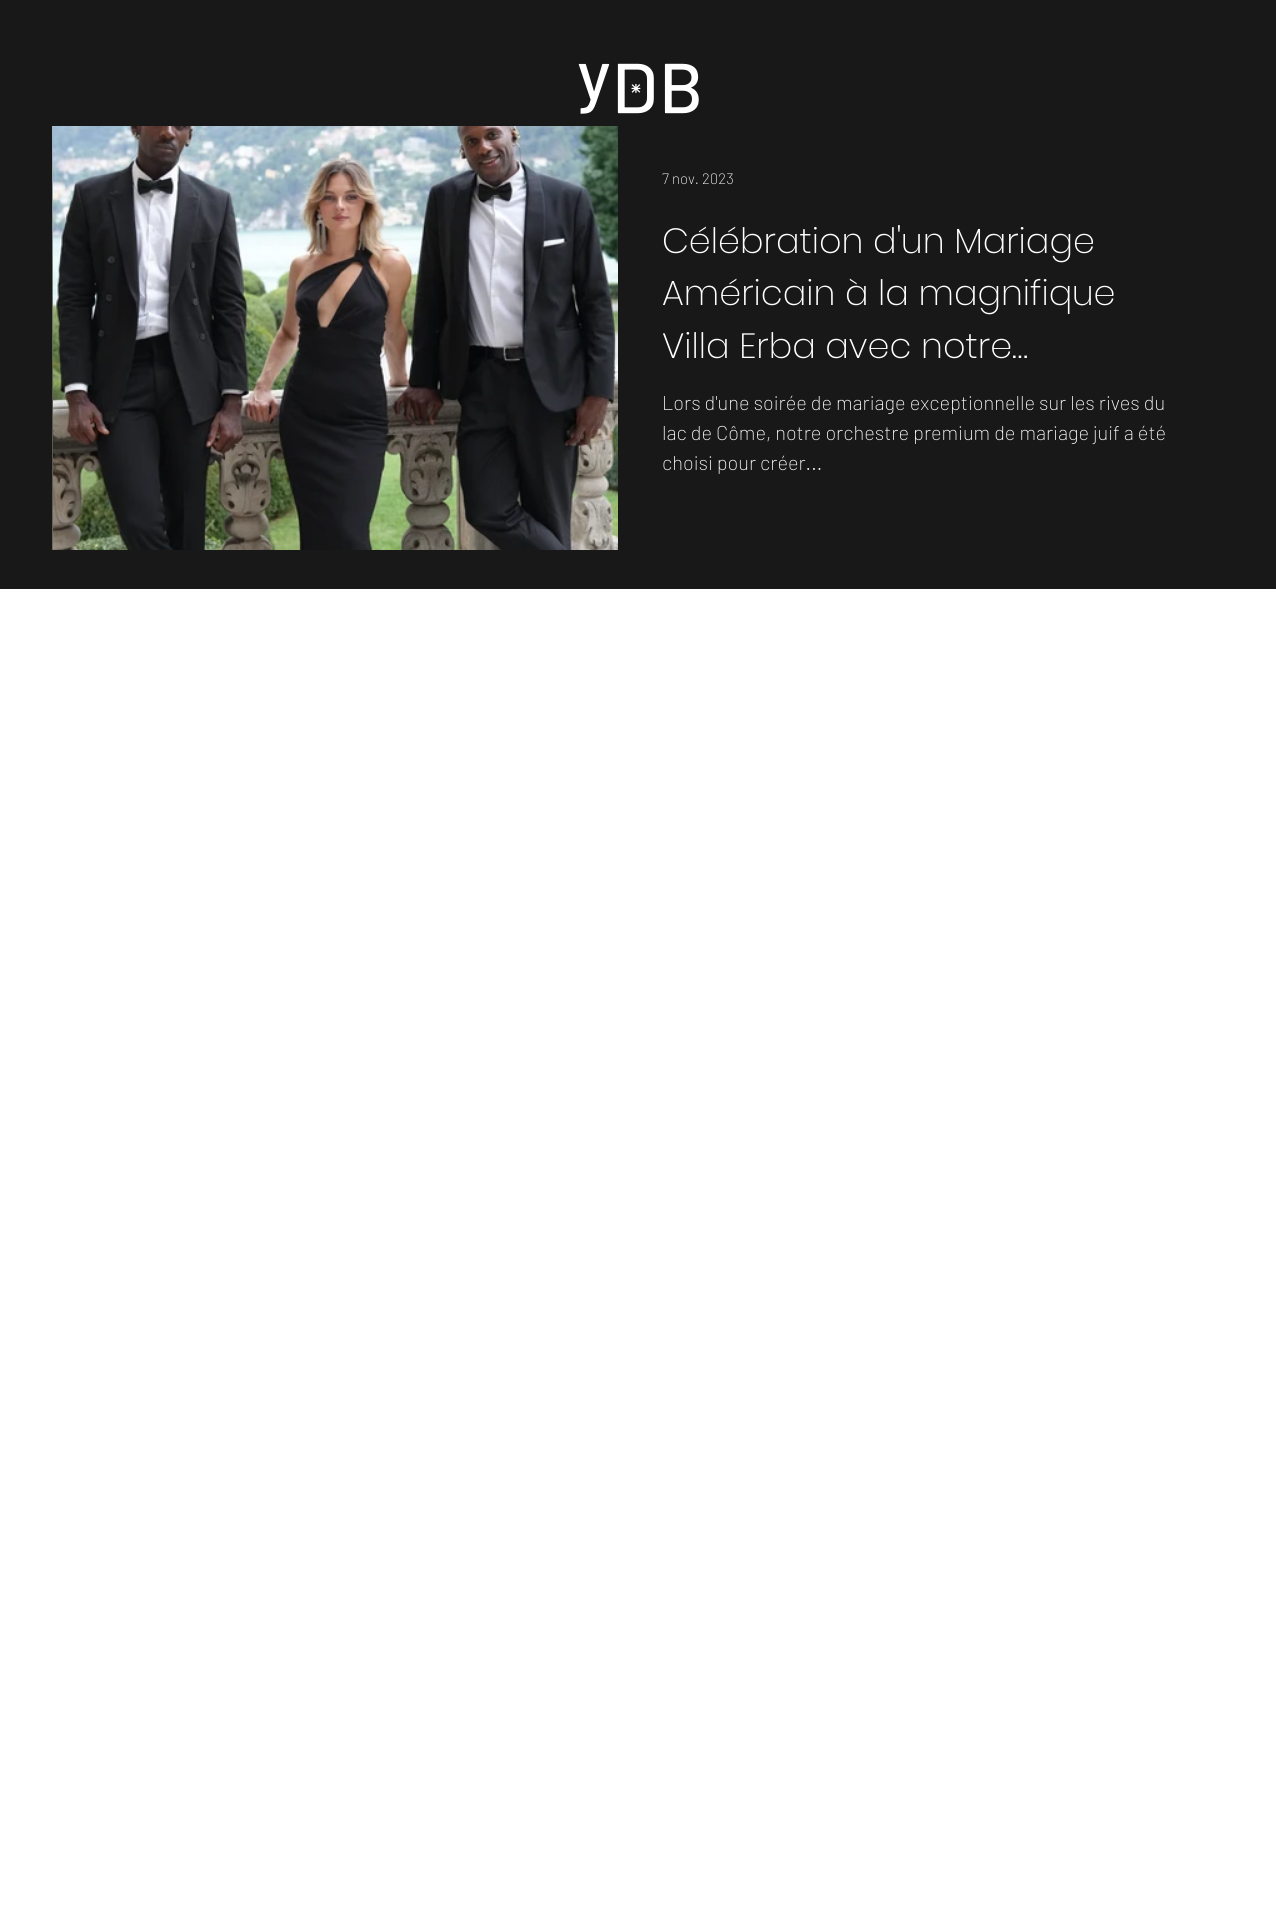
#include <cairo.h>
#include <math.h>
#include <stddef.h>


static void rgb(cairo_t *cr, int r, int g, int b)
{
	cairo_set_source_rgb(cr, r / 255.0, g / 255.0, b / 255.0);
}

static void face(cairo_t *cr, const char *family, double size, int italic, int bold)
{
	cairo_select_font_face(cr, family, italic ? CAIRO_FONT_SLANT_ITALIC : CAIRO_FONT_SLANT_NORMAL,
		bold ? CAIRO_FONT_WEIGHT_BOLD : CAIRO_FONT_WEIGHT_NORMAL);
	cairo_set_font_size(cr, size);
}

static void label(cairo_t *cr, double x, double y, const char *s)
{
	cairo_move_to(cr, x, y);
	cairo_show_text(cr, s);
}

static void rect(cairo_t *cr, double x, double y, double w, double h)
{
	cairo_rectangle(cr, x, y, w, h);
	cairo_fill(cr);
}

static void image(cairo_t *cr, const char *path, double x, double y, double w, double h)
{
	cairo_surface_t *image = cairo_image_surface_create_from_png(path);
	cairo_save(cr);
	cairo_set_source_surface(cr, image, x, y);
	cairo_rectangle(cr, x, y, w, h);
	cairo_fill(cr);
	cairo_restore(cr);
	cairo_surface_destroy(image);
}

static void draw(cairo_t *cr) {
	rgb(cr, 255, 255, 255);
	cairo_paint(cr);
	rgb(cr, 24, 24, 25);
	rect(cr, 0, 0, 1276, 589);
	image(cr, "image0.png", 578, 63, 121, 51);
	image(cr, "image1.png", 52, 126, 1, 424);
	image(cr, "image2.png", 53, 126, 565, 424);
	face(cr, "Barlow ExtraLight", 15, 0, 0);
	rgb(cr, 255, 255, 255);
	label(cr, 662, 184, "7 nov. 2023");
	face(cr, "Poppins ExtraLight", 35, 0, 0);
	label(cr, 662, 253, "Célébration d'un Mariage");
	label(cr, 662, 305, "Américain à la magnifique");
	label(cr, 662, 358, "Villa Erba avec notre…");
	face(cr, "Barlow ExtraLight", 20, 0, 0);
	label(cr, 662, 410, "Lors d'une soirée de mariage exceptionnelle sur les rives du");
	label(cr, 662, 440, "lac de Côme, notre orchestre premium de mariage juif a été");
	label(cr, 662, 470, "choisi pour créer...");
}

int main(void) {
	cairo_surface_t *surface = cairo_image_surface_create(CAIRO_FORMAT_RGB24, 1276, 1929);
	cairo_t *cr = cairo_create(surface);
	cairo_font_options_t *options = cairo_font_options_create();
	cairo_font_options_set_hint_metrics(options, CAIRO_HINT_METRICS_OFF);
	cairo_font_options_set_hint_style(options, CAIRO_HINT_STYLE_NONE);
	cairo_set_font_options(cr, options);
	cairo_set_miter_limit(cr, 4);
	draw(cr);
	cairo_surface_write_to_png(surface, "render.png");
	cairo_font_options_destroy(options);
	cairo_destroy(cr);
	cairo_surface_destroy(surface);
	return 0;
}
